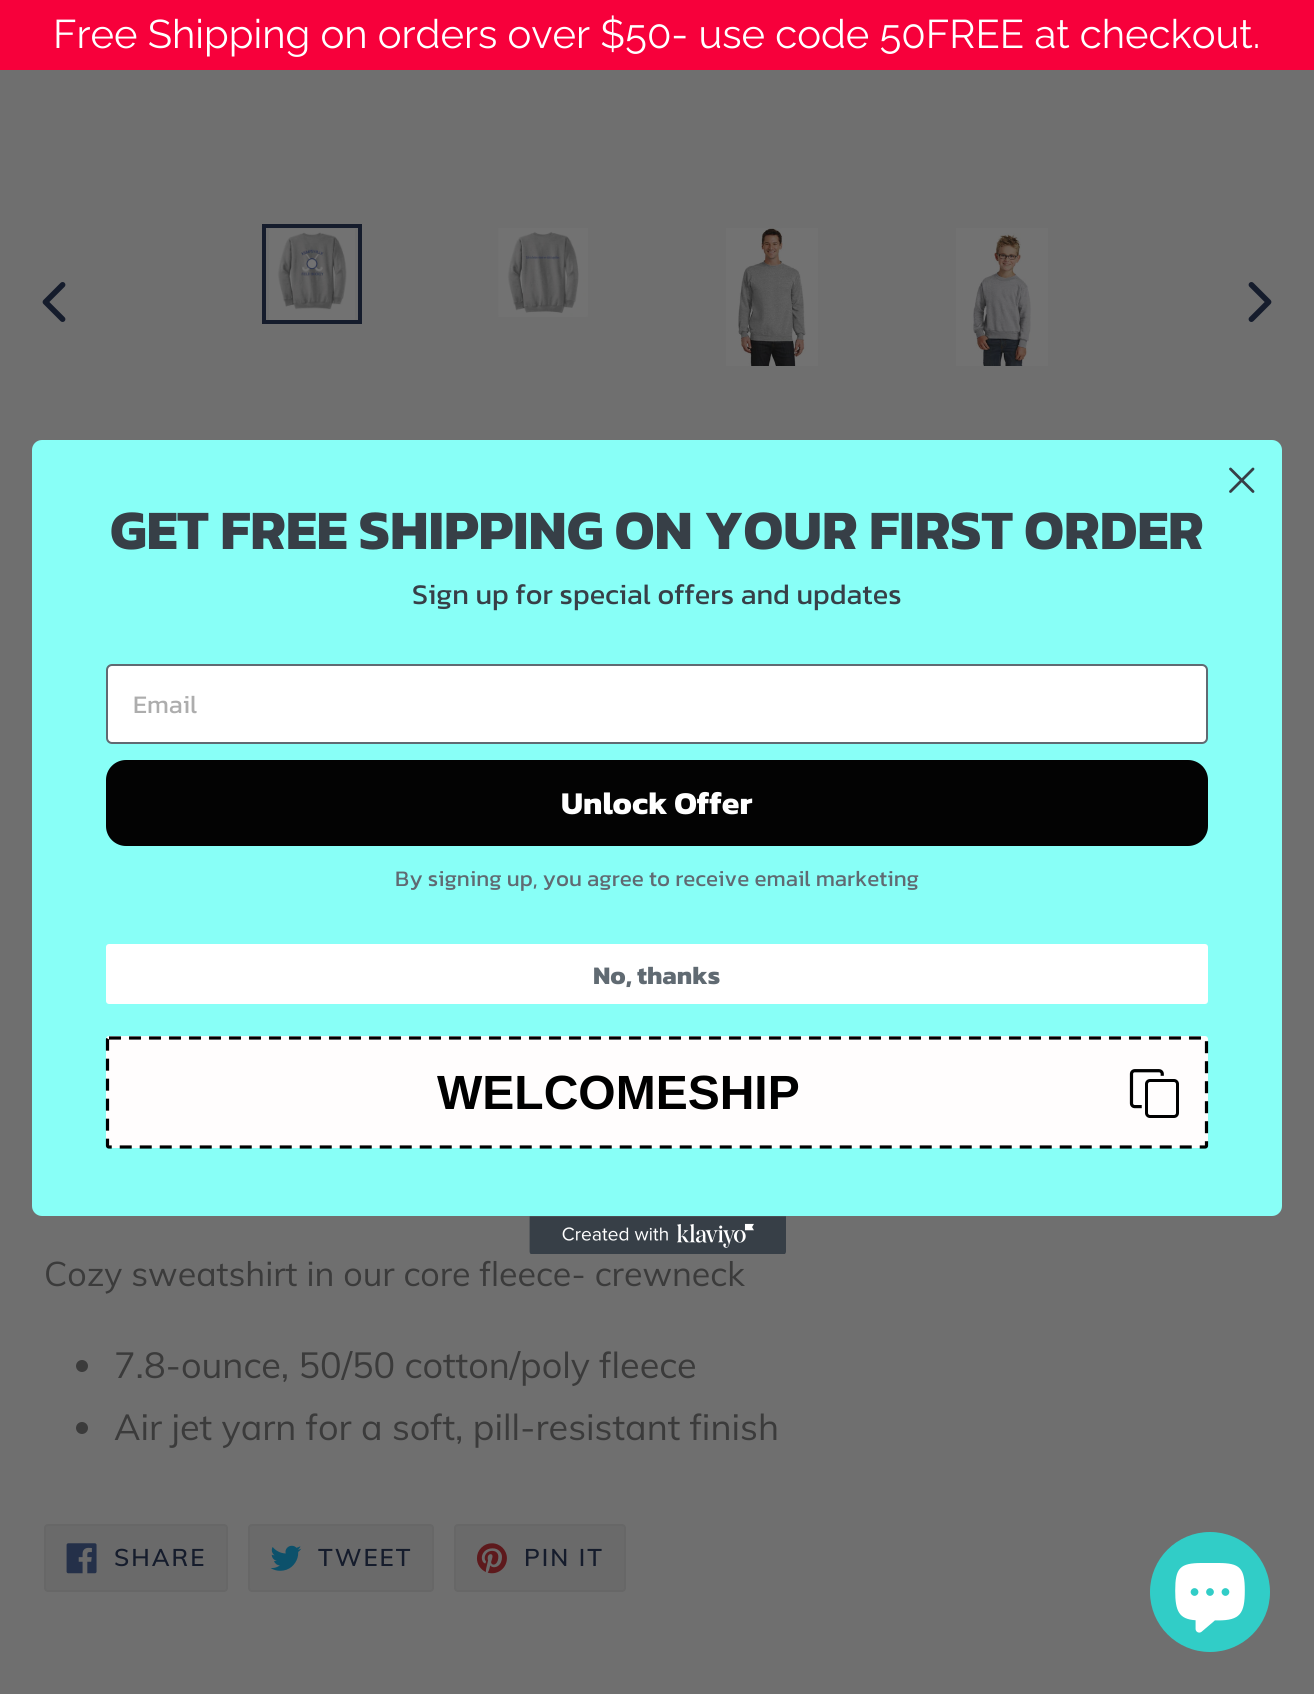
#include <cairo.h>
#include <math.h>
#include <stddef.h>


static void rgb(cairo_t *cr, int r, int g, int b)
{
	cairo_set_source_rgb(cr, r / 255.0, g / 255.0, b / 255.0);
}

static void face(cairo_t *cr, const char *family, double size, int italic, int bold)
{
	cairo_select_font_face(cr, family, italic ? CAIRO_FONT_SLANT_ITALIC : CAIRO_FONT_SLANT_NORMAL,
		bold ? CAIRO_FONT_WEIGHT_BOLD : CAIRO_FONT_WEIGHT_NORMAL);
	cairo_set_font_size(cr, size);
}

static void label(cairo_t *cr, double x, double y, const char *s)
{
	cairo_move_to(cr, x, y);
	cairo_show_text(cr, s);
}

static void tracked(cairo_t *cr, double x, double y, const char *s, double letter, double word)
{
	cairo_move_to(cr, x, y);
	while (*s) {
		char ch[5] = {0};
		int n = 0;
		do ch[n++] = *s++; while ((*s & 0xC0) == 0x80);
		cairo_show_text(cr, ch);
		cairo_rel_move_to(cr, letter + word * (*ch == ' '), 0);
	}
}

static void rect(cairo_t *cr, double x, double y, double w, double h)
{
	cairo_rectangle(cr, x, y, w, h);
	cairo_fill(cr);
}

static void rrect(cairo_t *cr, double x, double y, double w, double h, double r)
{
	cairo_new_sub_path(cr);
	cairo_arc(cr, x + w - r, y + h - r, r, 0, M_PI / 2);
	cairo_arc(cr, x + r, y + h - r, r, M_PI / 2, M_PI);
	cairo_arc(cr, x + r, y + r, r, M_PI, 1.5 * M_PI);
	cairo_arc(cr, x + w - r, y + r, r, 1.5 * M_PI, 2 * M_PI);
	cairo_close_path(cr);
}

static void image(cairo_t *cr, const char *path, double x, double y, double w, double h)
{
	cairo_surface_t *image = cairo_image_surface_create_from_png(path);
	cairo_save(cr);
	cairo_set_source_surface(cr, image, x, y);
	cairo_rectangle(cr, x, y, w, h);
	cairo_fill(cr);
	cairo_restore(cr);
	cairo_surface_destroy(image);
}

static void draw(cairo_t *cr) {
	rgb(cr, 111, 111, 111);
	cairo_paint(cr);
	rgb(cr, 247, 0, 59);
	rect(cr, 0, 0, 1314, 70);
	face(cr, "Raleway Thin", 40, 0, 0);
	rgb(cr, 255, 255, 255);
	label(cr, 53, 48, "Free Shipping on orders over $50- use code 50FREE at checkout.");
	rgb(cr, 136, 255, 247);
	rrect(cr, 32, 440, 1250, 776, 10);
	cairo_fill(cr);
	cairo_new_path(cr);
	cairo_move_to(cr, 1230.5, 469);
	cairo_line_to(cr, 1253, 491.5);
	cairo_move_to(cr, 1230.5, 491.5);
	cairo_line_to(cr, 1253, 469);
	cairo_close_path(cr);
	rgb(cr, 55, 63, 71);
	cairo_set_line_width(cr, 2.8);
	cairo_set_line_cap(cr, CAIRO_LINE_CAP_ROUND);
	cairo_set_line_join(cr, CAIRO_LINE_JOIN_ROUND);
	cairo_stroke(cr);
	face(cr, "Kanit", 56.1, 0, 1);
	label(cr, 110, 549, "GET FREE SHIPPING ON YOUR FIRST ORDER");
	face(cr, "Kanit", 28.8, 0, 0);
	label(cr, 412, 604, "Sign up for special offers and updates");
	rgb(cr, 255, 255, 255);
	rrect(cr, 107, 665, 1100, 78, 5);
	cairo_fill_preserve(cr);
	rgb(cr, 96, 106, 114);
	cairo_set_line_width(cr, 2);
	cairo_set_line_cap(cr, CAIRO_LINE_CAP_BUTT);
	cairo_set_line_join(cr, CAIRO_LINE_JOIN_MITER);
	cairo_stroke(cr);
	face(cr, "Kanit", 25.5, 0, 0);
	rgb(cr, 173, 173, 173);
	label(cr, 133, 713, "Email");
	rgb(cr, 3, 3, 3);
	rrect(cr, 106, 760, 1102, 86, 20);
	cairo_fill(cr);
	face(cr, "Kanit", 32, 0, 1);
	rgb(cr, 255, 255, 255);
	label(cr, 561, 814, "Unlock Offer");
	face(cr, "Kanit", 22.4, 0, 0);
	rgb(cr, 96, 106, 114);
	label(cr, 395, 886, "By signing up, you agree to receive email marketing");
	rgb(cr, 255, 255, 255);
	rrect(cr, 106, 944, 1102, 60, 3);
	cairo_fill(cr);
	face(cr, "Kanit", 25.5, 0, 1);
	rgb(cr, 96, 106, 114);
	label(cr, 593, 984, "No, thanks");
	rgb(cr, 255, 253, 253);
	rrect(cr, 106, 1036, 1102, 112, 3);
	cairo_fill(cr);
	cairo_new_path(cr);
	cairo_move_to(cr, 109, 1038);
	cairo_line_to(cr, 1205, 1038);
	cairo_curve_to(cr, 1206, 1038, 1206.5, 1039, 1206.5, 1039.5);
	cairo_line_to(cr, 1206.5, 1145.5);
	cairo_curve_to(cr, 1206.5, 1146.5, 1206, 1147, 1205, 1147);
	cairo_line_to(cr, 109, 1147);
	cairo_curve_to(cr, 108, 1147, 107.5, 1146.5, 107.5, 1145.5);
	cairo_line_to(cr, 107.5, 1039.5);
	cairo_curve_to(cr, 107.5, 1039, 108, 1038, 109, 1038);
	cairo_close_path(cr);
	rgb(cr, 0, 0, 0);
	cairo_set_line_width(cr, 3.2);
	cairo_set_dash(cr, (double[]){12, 8}, 2, 0);
	cairo_stroke(cr);
	face(cr, "Liberation Sans", 48, 0, 1);
	label(cr, 437, 1109, "WELCOMESHIP");
	image(cr, "image0.png", 1129, 1069, 50, 49);
	image(cr, "image1.png", 529, 1216, 257, 38);
	image(cr, "image2.png", 42, 282, 24, 40);
	cairo_rectangle(cr, 264, 226, 96, 96);
	rgb(cr, 21, 28, 44);
	cairo_set_line_width(cr, 4);
	cairo_set_dash(cr, NULL, 0, 0);
	cairo_stroke(cr);
	image(cr, "image3.png", 269, 228, 86, 92);
	image(cr, "image4.png", 498, 228, 90, 89);
	image(cr, "image5.png", 726, 228, 92, 138);
	image(cr, "image6.png", 956, 228, 92, 138);
	image(cr, "image7.png", 1248, 282, 24, 40);
	face(cr, "Muli", 34, 0, 0);
	rgb(cr, 59, 59, 59);
	label(cr, 44, 1286, "Cozy sweatshirt in our core fleece- crewneck");
	cairo_new_path(cr);
	cairo_arc(cr, 82, 1366, 6, 0, 2 * M_PI);
	cairo_fill(cr);
	face(cr, "Muli", 36, 0, 0);
	label(cr, 114, 1378, "7.8-ounce, 50/50 cotton/poly fleece");
	cairo_new_path(cr);
	cairo_arc(cr, 82, 1428, 6, 0, 2 * M_PI);
	cairo_fill(cr);
	label(cr, 114, 1440, "Air jet yarn for a soft, pill-resistant finish");
	rgb(cr, 106, 106, 106);
	rrect(cr, 45, 1525, 182, 66, 3);
	cairo_fill_preserve(cr);
	rgb(cr, 103, 103, 103);
	cairo_set_line_width(cr, 2);
	cairo_stroke(cr);
	image(cr, "image8.png", 66, 1543, 31, 31);
	face(cr, "Muli SemiBold", 24, 0, 0);
	rgb(cr, 21, 28, 44);
	tracked(cr, 114, 1566, "SHARE", 2, 0);
	rgb(cr, 106, 106, 106);
	rrect(cr, 249, 1525, 184, 66, 3);
	cairo_fill_preserve(cr);
	rgb(cr, 103, 103, 103);
	cairo_stroke(cr);
	image(cr, "image9.png", 270, 1545, 32, 26);
	rgb(cr, 21, 28, 44);
	tracked(cr, 318, 1566, "TWEET", 2, 0);
	rgb(cr, 106, 106, 106);
	rrect(cr, 455, 1525, 170, 66, 3);
	cairo_fill_preserve(cr);
	rgb(cr, 103, 103, 103);
	cairo_stroke(cr);
	image(cr, "image10.png", 476, 1543, 31, 31);
	rgb(cr, 21, 28, 44);
	tracked(cr, 524, 1566, "PIN IT", 2, 0);
	rgb(cr, 49, 205, 199);
	cairo_new_path(cr);
	cairo_arc(cr, 1210, 1592, 60, 0, 2 * M_PI);
	cairo_fill(cr);
	image(cr, "image11.png", 1175, 1563, 70, 70);
}

int main(void) {
	cairo_surface_t *surface = cairo_image_surface_create(CAIRO_FORMAT_RGB24, 1314, 1694);
	cairo_t *cr = cairo_create(surface);
	cairo_font_options_t *options = cairo_font_options_create();
	cairo_font_options_set_hint_metrics(options, CAIRO_HINT_METRICS_OFF);
	cairo_font_options_set_hint_style(options, CAIRO_HINT_STYLE_NONE);
	cairo_set_font_options(cr, options);
	cairo_set_miter_limit(cr, 4);
	draw(cr);
	cairo_surface_write_to_png(surface, "render.png");
	cairo_font_options_destroy(options);
	cairo_destroy(cr);
	cairo_surface_destroy(surface);
	return 0;
}
